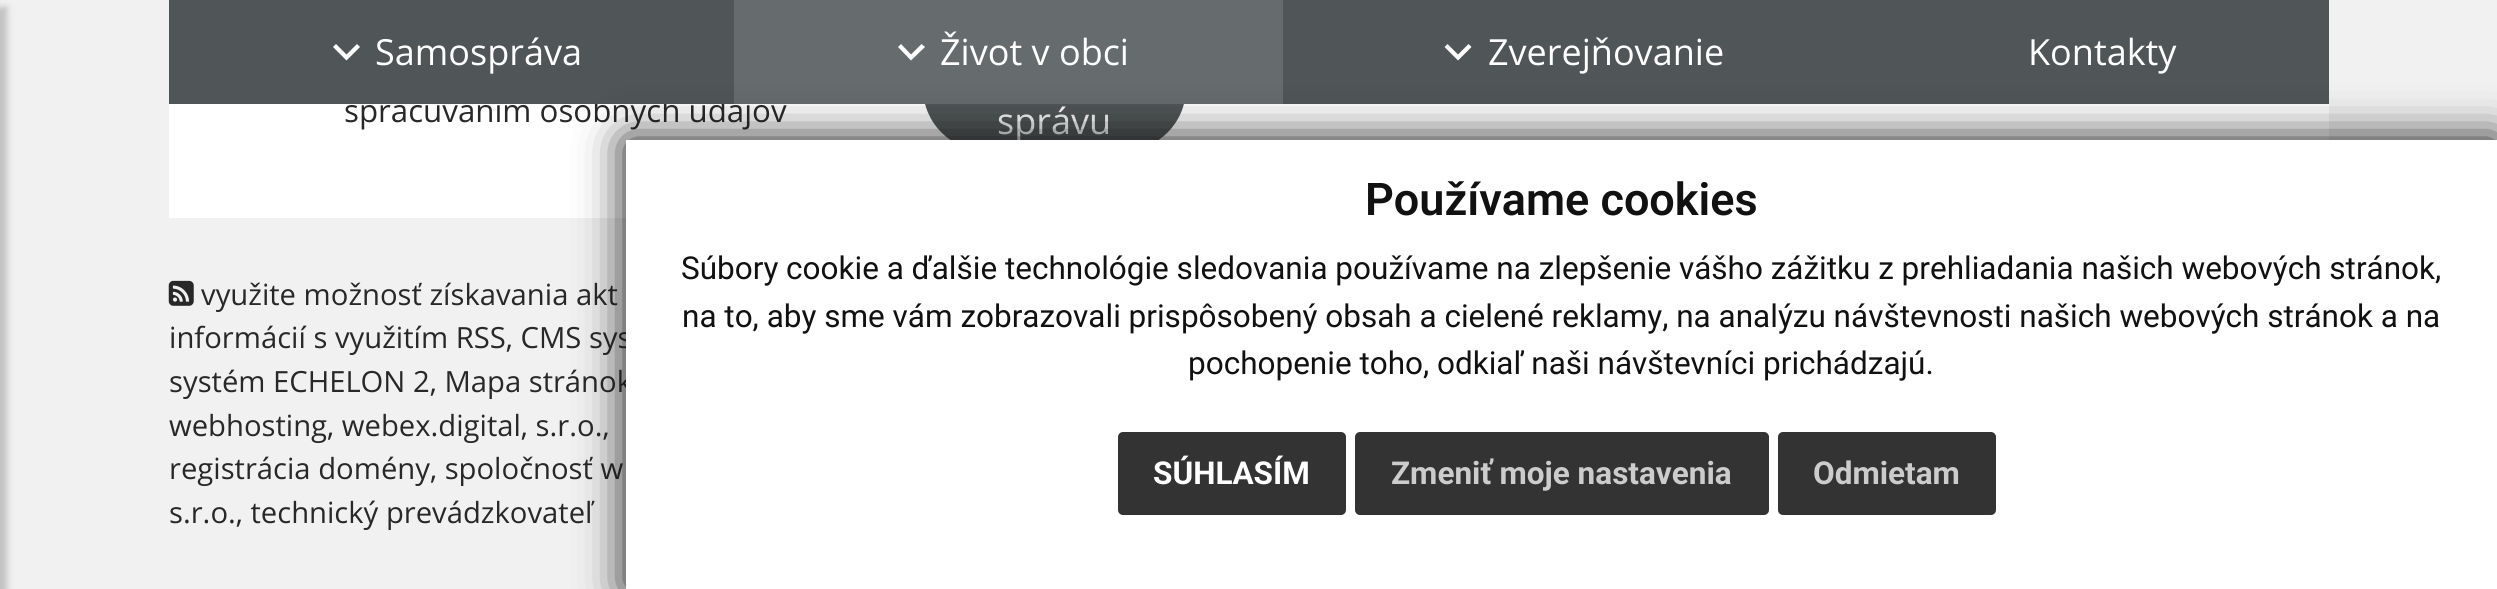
#include <cairo.h>
#include <math.h>
#include <stddef.h>


static void rgb(cairo_t *cr, int r, int g, int b)
{
	cairo_set_source_rgb(cr, r / 255.0, g / 255.0, b / 255.0);
}

static void face(cairo_t *cr, const char *family, double size, int italic, int bold)
{
	cairo_select_font_face(cr, family, italic ? CAIRO_FONT_SLANT_ITALIC : CAIRO_FONT_SLANT_NORMAL,
		bold ? CAIRO_FONT_WEIGHT_BOLD : CAIRO_FONT_WEIGHT_NORMAL);
	cairo_set_font_size(cr, size);
}

static void label(cairo_t *cr, double x, double y, const char *s)
{
	cairo_move_to(cr, x, y);
	cairo_show_text(cr, s);
}

static void rect(cairo_t *cr, double x, double y, double w, double h)
{
	cairo_rectangle(cr, x, y, w, h);
	cairo_fill(cr);
}

static void rrect(cairo_t *cr, double x, double y, double w, double h, double r)
{
	cairo_new_sub_path(cr);
	cairo_arc(cr, x + w - r, y + h - r, r, 0, M_PI / 2);
	cairo_arc(cr, x + r, y + h - r, r, M_PI / 2, M_PI);
	cairo_arc(cr, x + r, y + r, r, M_PI, 1.5 * M_PI);
	cairo_arc(cr, x + w - r, y + r, r, 1.5 * M_PI, 2 * M_PI);
	cairo_close_path(cr);
}

static void soft_shadow(cairo_t *cr, double x, double y, double w, double h, double r, double blur, double alpha)
{
	cairo_push_group_with_content(cr, CAIRO_CONTENT_ALPHA);
	cairo_set_operator(cr, CAIRO_OPERATOR_SOURCE);
	for (int i = 15; i >= -15 && fmin(w, h) + blur * i / 3 > 0; i -= 2) {
		double e = blur * i / 6;
		cairo_set_source_rgba(cr, 0, 0, 0, alpha * erfc((i - 1) / 8.5) / 2);
		rrect(cr, x - e, y - e, w + 2 * e, h + 2 * e, fmax(0, fmin(r + e + blur * .6, fmin(w, h) / 2 + e)));
		cairo_fill(cr);
	}
	cairo_pattern_t *soft = cairo_pop_group(cr);
	cairo_mask(cr, soft);
	cairo_pattern_destroy(soft);
}

static void image(cairo_t *cr, const char *path, double x, double y, double w, double h)
{
	cairo_surface_t *image = cairo_image_surface_create_from_png(path);
	cairo_save(cr);
	cairo_set_source_surface(cr, image, x, y);
	cairo_rectangle(cr, x, y, w, h);
	cairo_fill(cr);
	cairo_restore(cr);
	cairo_surface_destroy(image);
}

static void draw(cairo_t *cr) {
	rgb(cr, 241, 241, 241);
	cairo_paint(cr);
	rgb(cr, 0, 0, 0);
	soft_shadow(cr, -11, 7, 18, 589, 0, 3.5, 0.2);
	rgb(cr, 255, 255, 255);
	rect(cr, 169, 104, 2160, 114);
	face(cr, "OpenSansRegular", 31.25, 0, 0);
	rgb(cr, 40, 40, 40);
	label(cr, 344, 122, "spracúvaním osobných údajov");
	rgb(cr, 80, 85, 87);
	rrect(cr, 923, 25, 263, 126, 63);
	cairo_fill(cr);
	rect(cr, 169, 0, 2160, 104);
	rgb(cr, 255, 255, 255);
	cairo_new_path(cr);
	cairo_move_to(cr, 357, 44);
	cairo_line_to(cr, 360, 47);
	cairo_line_to(cr, 346.5, 60.5);
	cairo_line_to(cr, 333, 47);
	cairo_line_to(cr, 336, 44);
	cairo_line_to(cr, 346.5, 54.5);
	cairo_close_path(cr);
	cairo_fill(cr);
	face(cr, "OpenSansRegular", 36, 0, 0);
	label(cr, 375, 65, "Samospráva");
	rgb(cr, 102, 108, 110);
	rect(cr, 734, 0, 549, 104);
	rgb(cr, 255, 255, 255);
	cairo_new_path(cr);
	cairo_move_to(cr, 921.5, 44);
	cairo_line_to(cr, 925, 47);
	cairo_line_to(cr, 911, 60.5);
	cairo_line_to(cr, 898, 47);
	cairo_line_to(cr, 901, 44);
	cairo_line_to(cr, 911, 54.5);
	cairo_close_path(cr);
	cairo_fill(cr);
	label(cr, 940, 65, "Život v obci");
	cairo_new_path(cr);
	cairo_move_to(cr, 1468.5, 44);
	cairo_line_to(cr, 1471.5, 47);
	cairo_line_to(cr, 1458, 60.5);
	cairo_line_to(cr, 1444.5, 47);
	cairo_line_to(cr, 1447.5, 44);
	cairo_line_to(cr, 1458, 54.5);
	cairo_close_path(cr);
	cairo_fill(cr);
	label(cr, 1488, 65, "Zverejňovanie");
	label(cr, 2028, 65, "Kontakty");
	label(cr, 997, 134, "správu");
	image(cr, "image0.png", 168, 280, 26, 26);
	face(cr, "OpenSansRegular", 29.2, 0, 0);
	rgb(cr, 40, 40, 40);
	label(cr, 201, 305, "využite možnosť získavania akt");
	label(cr, 169, 348, "informácií s využitím RSS, CMS sys");
	label(cr, 169, 392, "systém ECHELON 2, Mapa stránok");
	label(cr, 169, 436, "webhosting, webex.digital, s.r.o.,");
	label(cr, 169, 479, "registrácia domény, spoločnosť w");
	label(cr, 169, 523, "s.r.o., technický prevádzkovateľ");
	rgb(cr, 17, 17, 17);
	soft_shadow(cr, 626, 140, 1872, 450, 0, 22.5, 1);
	rgb(cr, 255, 255, 255);
	rect(cr, 626, 140, 1871, 449);
	face(cr, "Roboto SemiBold", 45, 0, 0);
	rgb(cr, 17, 17, 17);
	label(cr, 1365, 215, "Používame cookies");
	face(cr, "Roboto", 31.5, 0, 0);
	label(cr, 681, 279, "Súbory cookie a ďalšie technológie sledovania používame na zlepšenie vášho zážitku z prehliadania našich webových stránok,");
	label(cr, 682, 327, "na to, aby sme vám zobrazovali prispôsobený obsah a cielené reklamy, na analýzu návštevnosti našich webových stránok a na");
	label(cr, 1188, 374, "pochopenie toho, odkiaľ naši návštevníci prichádzajú.");
	rgb(cr, 51, 51, 51);
	rrect(cr, 1118, 432, 228, 83, 5);
	cairo_fill(cr);
	face(cr, "Roboto", 31.5, 0, 1);
	rgb(cr, 255, 255, 255);
	label(cr, 1153, 484, "SÚHLASÍM");
	rgb(cr, 51, 51, 51);
	rrect(cr, 1355, 432, 414, 83, 5);
	cairo_fill(cr);
	rgb(cr, 204, 204, 204);
	label(cr, 1391, 484, "Zmeniť moje nastavenia");
	rgb(cr, 51, 51, 51);
	rrect(cr, 1778, 432, 218, 83, 5);
	cairo_fill(cr);
	rgb(cr, 204, 204, 204);
	label(cr, 1813, 484, "Odmietam");
}

int main(void) {
	cairo_surface_t *surface = cairo_image_surface_create(CAIRO_FORMAT_RGB24, 2497, 589);
	cairo_t *cr = cairo_create(surface);
	cairo_font_options_t *options = cairo_font_options_create();
	cairo_font_options_set_hint_metrics(options, CAIRO_HINT_METRICS_OFF);
	cairo_font_options_set_hint_style(options, CAIRO_HINT_STYLE_NONE);
	cairo_set_font_options(cr, options);
	cairo_set_miter_limit(cr, 4);
	draw(cr);
	cairo_surface_write_to_png(surface, "render.png");
	cairo_font_options_destroy(options);
	cairo_destroy(cr);
	cairo_surface_destroy(surface);
	return 0;
}
